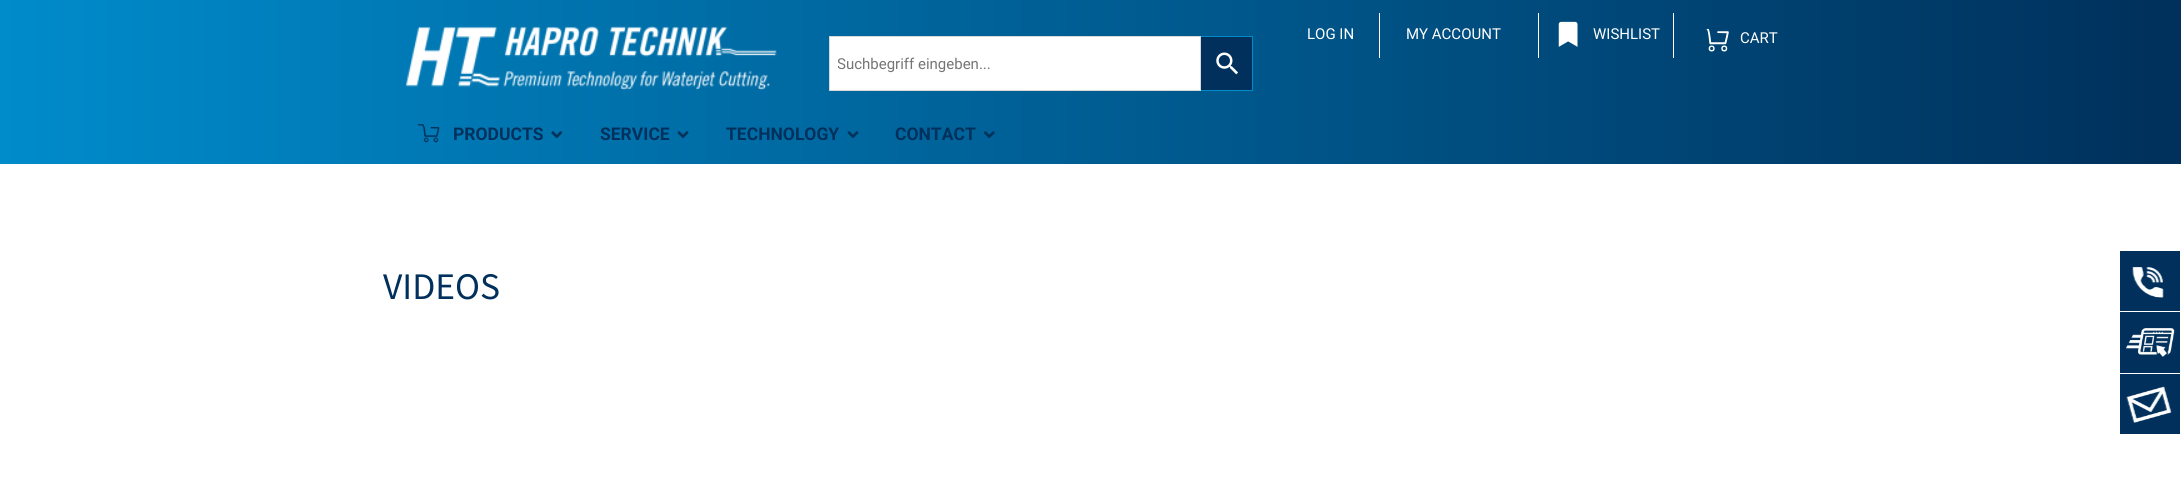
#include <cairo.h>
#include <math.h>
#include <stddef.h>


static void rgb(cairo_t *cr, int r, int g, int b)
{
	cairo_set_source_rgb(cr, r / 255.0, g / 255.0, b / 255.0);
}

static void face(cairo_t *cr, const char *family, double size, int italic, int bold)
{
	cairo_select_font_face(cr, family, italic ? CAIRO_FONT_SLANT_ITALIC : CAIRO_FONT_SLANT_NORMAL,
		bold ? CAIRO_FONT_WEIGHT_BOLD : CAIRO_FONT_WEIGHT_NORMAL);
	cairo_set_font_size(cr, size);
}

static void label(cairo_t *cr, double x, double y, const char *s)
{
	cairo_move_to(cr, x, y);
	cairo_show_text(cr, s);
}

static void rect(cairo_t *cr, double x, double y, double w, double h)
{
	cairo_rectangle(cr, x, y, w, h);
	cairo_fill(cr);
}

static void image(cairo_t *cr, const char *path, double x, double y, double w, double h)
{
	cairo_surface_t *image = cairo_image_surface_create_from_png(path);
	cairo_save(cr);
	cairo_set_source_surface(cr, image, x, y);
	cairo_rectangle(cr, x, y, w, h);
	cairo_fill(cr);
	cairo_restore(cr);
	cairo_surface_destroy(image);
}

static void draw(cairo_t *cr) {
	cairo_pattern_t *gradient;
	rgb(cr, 255, 255, 255);
	cairo_paint(cr);
	gradient = cairo_pattern_create_linear(0, 82, 2181, 82);
	cairo_pattern_add_color_stop_rgba(gradient, 0, 0, 0.545, 0.796, 1);
	cairo_pattern_add_color_stop_rgba(gradient, 1, 0, 0.188, 0.357, 1);
	cairo_set_source(cr, gradient);
	cairo_pattern_destroy(gradient);
	rect(cr, 0, 0, 2181, 164);
	image(cr, "image0.png", 405, 26, 372, 64);
	rgb(cr, 255, 255, 255);
	rect(cr, 1379, 13, 1, 45);
	face(cr, "Roboto", 15, 0, 0);
	label(cr, 1307, 39, "LOG IN");
	rect(cr, 1538, 13, 1, 45);
	label(cr, 1406, 39, "MY ACCOUNT");
	rect(cr, 1673, 13, 1, 45);
	image(cr, "image1.png", 1558, 21, 20, 26);
	label(cr, 1593, 39, "WISHLIST");
	image(cr, "image2.png", 1705, 29, 24, 23);
	label(cr, 1740, 43, "CART");
	rgb(cr, 0, 48, 91);
	cairo_rectangle(cr, 1200.5, 36.5, 52, 54);
	cairo_fill_preserve(cr);
	rgb(cr, 0, 139, 203);
	cairo_set_line_width(cr, 1);
	cairo_stroke(cr);
	rgb(cr, 255, 255, 255);
	cairo_rectangle(cr, 829.5, 36.5, 371, 54);
	cairo_fill_preserve(cr);
	rgb(cr, 216, 216, 216);
	cairo_stroke(cr);
	cairo_save(cr);
	cairo_rectangle(cr, 838, 55, 312, 18);
	cairo_clip(cr);
	rgb(cr, 117, 117, 117);
	label(cr, 837, 69, "Suchbegriff eingeben...");
	cairo_restore(cr);
	image(cr, "image3.png", 1216, 52, 22, 23);
	image(cr, "image4.png", 417, 124, 23, 19);
	face(cr, "Roboto", 17.5, 0, 1);
	rgb(cr, 0, 48, 91);
	label(cr, 453, 140, "PRODUCTS");
	image(cr, "image5.png", 551, 131, 12, 8);
	label(cr, 600, 140, "SERVICE");
	image(cr, "image6.png", 677, 131, 12, 8);
	label(cr, 726, 140, "TECHNOLOGY");
	image(cr, "image7.png", 847, 131, 12, 7);
	label(cr, 895, 140, "CONTACT");
	image(cr, "image8.png", 983, 131, 12, 8);
	face(cr, "Source Sans Pro", 37.5, 0, 0);
	label(cr, 383, 299, "VIDEOS");
	rect(cr, 2120, 251, 60, 60);
	image(cr, "image9.png", 2132, 267, 32, 31);
	rect(cr, 2120, 312, 60, 61);
	image(cr, "image10.png", 2126, 328, 49, 29);
	rect(cr, 2120, 374, 60, 60);
	image(cr, "image11.png", 2126, 386, 46, 37);
}

int main(void) {
	cairo_surface_t *surface = cairo_image_surface_create(CAIRO_FORMAT_RGB24, 2181, 490);
	cairo_t *cr = cairo_create(surface);
	cairo_font_options_t *options = cairo_font_options_create();
	cairo_font_options_set_hint_metrics(options, CAIRO_HINT_METRICS_OFF);
	cairo_font_options_set_hint_style(options, CAIRO_HINT_STYLE_NONE);
	cairo_set_font_options(cr, options);
	cairo_set_miter_limit(cr, 4);
	draw(cr);
	cairo_surface_write_to_png(surface, "render.png");
	cairo_font_options_destroy(options);
	cairo_destroy(cr);
	cairo_surface_destroy(surface);
	return 0;
}
